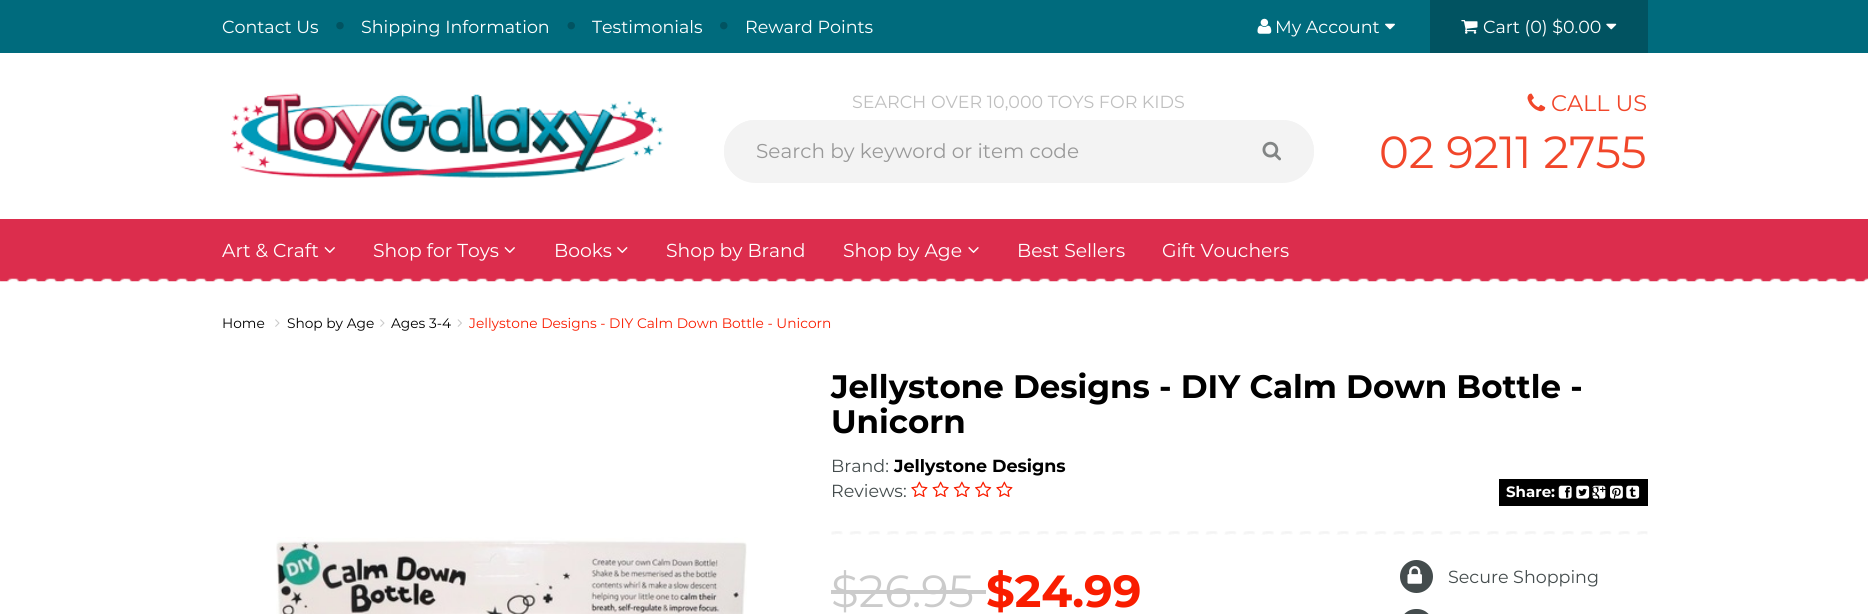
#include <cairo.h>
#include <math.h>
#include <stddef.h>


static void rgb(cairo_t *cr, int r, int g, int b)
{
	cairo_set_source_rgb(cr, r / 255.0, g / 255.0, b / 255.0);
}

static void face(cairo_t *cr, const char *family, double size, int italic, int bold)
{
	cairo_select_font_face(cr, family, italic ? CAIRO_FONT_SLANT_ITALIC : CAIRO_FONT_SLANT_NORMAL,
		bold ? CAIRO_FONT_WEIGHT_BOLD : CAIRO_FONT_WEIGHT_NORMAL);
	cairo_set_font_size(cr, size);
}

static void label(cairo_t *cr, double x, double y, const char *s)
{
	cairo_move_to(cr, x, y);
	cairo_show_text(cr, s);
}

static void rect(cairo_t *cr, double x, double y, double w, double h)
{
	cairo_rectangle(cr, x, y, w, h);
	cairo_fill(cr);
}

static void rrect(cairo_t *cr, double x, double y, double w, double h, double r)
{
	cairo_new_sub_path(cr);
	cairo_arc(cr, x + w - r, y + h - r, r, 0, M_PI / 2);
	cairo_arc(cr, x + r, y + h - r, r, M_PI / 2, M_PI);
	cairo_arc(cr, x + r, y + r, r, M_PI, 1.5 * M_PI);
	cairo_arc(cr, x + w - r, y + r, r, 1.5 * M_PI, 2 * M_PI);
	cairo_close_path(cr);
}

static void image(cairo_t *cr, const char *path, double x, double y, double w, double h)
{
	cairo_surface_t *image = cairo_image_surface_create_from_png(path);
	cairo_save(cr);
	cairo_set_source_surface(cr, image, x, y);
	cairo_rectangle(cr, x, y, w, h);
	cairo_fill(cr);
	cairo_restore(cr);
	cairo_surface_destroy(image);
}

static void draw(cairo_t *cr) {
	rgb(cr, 255, 255, 255);
	cairo_paint(cr);
	rgb(cr, 0, 107, 125);
	rect(cr, 0, 0, 1868, 53);
	face(cr, "Montserrat", 17.5, 0, 0);
	rgb(cr, 255, 255, 255);
	label(cr, 222, 33, "Contact Us");
	image(cr, "image0.png", 336, 22, 8, 8);
	label(cr, 361, 33, "Shipping Information");
	image(cr, "image1.png", 567, 22, 8, 8);
	label(cr, 592, 33, "Testimonials");
	image(cr, "image2.png", 720, 22, 8, 8);
	label(cr, 745, 33, "Reward Points");
	image(cr, "image3.png", 1257, 18, 15, 16);
	label(cr, 1275, 33, "My Account");
	image(cr, "image4.png", 1385, 23, 10, 7);
	rgb(cr, 1, 83, 97);
	rect(cr, 1430, 0, 218, 53);
	image(cr, "image5.png", 1461, 20, 17, 14);
	rgb(cr, 255, 255, 255);
	label(cr, 1483, 33, "Cart (0) $0.00");
	image(cr, "image6.png", 1606, 23, 11, 7);
	image(cr, "image7.png", 231, 93, 433, 85);
	rgb(cr, 191, 191, 191);
	label(cr, 852, 108, "SEARCH OVER 10,000 TOYS FOR KIDS");
	rgb(cr, 243, 243, 243);
	cairo_new_path(cr);
	cairo_move_to(cr, 755.5, 120);
	cairo_line_to(cr, 1249, 120);
	cairo_line_to(cr, 1249, 183);
	cairo_line_to(cr, 755.5, 183);
	cairo_curve_to(cr, 738, 183, 724, 169, 724, 151.5);
	cairo_curve_to(cr, 724, 134, 738, 120, 755.5, 120);
	cairo_close_path(cr);
	cairo_fill(cr);
	cairo_set_fill_rule(cr, CAIRO_FILL_RULE_EVEN_ODD);
	cairo_new_path(cr);
	cairo_move_to(cr, 755, 120);
	cairo_line_to(cr, 1249, 120);
	cairo_line_to(cr, 1249, 182);
	cairo_line_to(cr, 755, 182);
	cairo_curve_to(cr, 738, 182, 724, 169, 724, 151);
	cairo_curve_to(cr, 724, 134, 738, 120, 755, 120);
	cairo_close_path(cr);
	cairo_move_to(cr, 755, 121);
	cairo_line_to(cr, 1249, 121);
	cairo_line_to(cr, 1249, 181);
	cairo_line_to(cr, 755, 181);
	cairo_curve_to(cr, 738, 181, 725, 168, 725, 151);
	cairo_curve_to(cr, 725, 135, 738, 121, 755, 121);
	cairo_close_path(cr);
	cairo_fill(cr);
	face(cr, "Montserrat", 20, 0, 0);
	rgb(cr, 153, 153, 153);
	label(cr, 756, 158, "Search by keyword or item code");
	rgb(cr, 243, 243, 243);
	cairo_new_path(cr);
	cairo_move_to(cr, 1248, 120);
	cairo_line_to(cr, 1282.5, 120);
	cairo_curve_to(cr, 1300, 120, 1314, 134, 1314, 151.5);
	cairo_curve_to(cr, 1314, 169, 1300, 183, 1282.5, 183);
	cairo_line_to(cr, 1248, 183);
	cairo_close_path(cr);
	cairo_fill(cr);
	cairo_new_path(cr);
	cairo_move_to(cr, 1248, 120);
	cairo_line_to(cr, 1282, 120);
	cairo_curve_to(cr, 1300, 120, 1314, 134, 1314, 151);
	cairo_curve_to(cr, 1314, 169, 1300, 182, 1282, 182);
	cairo_line_to(cr, 1248, 182);
	cairo_close_path(cr);
	cairo_move_to(cr, 1248, 121);
	cairo_line_to(cr, 1282, 121);
	cairo_curve_to(cr, 1299, 121, 1312, 135, 1312, 151);
	cairo_curve_to(cr, 1312, 168, 1299, 181, 1282, 181);
	cairo_line_to(cr, 1248, 181);
	cairo_close_path(cr);
	cairo_fill(cr);
	image(cr, "image8.png", 1262, 141, 19, 20);
	image(cr, "image9.png", 1527, 93, 19, 19);
	face(cr, "Montserrat", 22.5, 0, 0);
	rgb(cr, 241, 70, 42);
	label(cr, 1551, 111, "CALL US");
	face(cr, "Montserrat", 45, 0, 0);
	label(cr, 1379, 168, "02 9211 2755");
	rgb(cr, 220, 45, 77);
	rect(cr, 0, 219, 1868, 59);
	image(cr, "image10.png", 0, 278, 1868, 4);
	face(cr, "Montserrat", 18.75, 0, 0);
	rgb(cr, 255, 255, 255);
	label(cr, 222, 257, "Art & Craft");
	image(cr, "image11.png", 324, 247, 11, 6);
	label(cr, 373, 257, "Shop for Toys");
	image(cr, "image11.png", 504, 247, 11, 6);
	label(cr, 554, 257, "Books");
	image(cr, "image12.png", 617, 247, 11, 6);
	label(cr, 666, 257, "Shop by Brand");
	label(cr, 843, 257, "Shop by Age");
	image(cr, "image13.png", 968, 247, 11, 6);
	label(cr, 1017, 257, "Best Sellers");
	label(cr, 1162, 257, "Gift Vouchers");
	face(cr, "Montserrat", 13.75, 0, 0);
	rgb(cr, 0, 0, 0);
	label(cr, 222, 328, "Home");
	image(cr, "image14.png", 275, 319, 5, 8);
	label(cr, 287, 328, "Shop by Age");
	image(cr, "image14.png", 380, 319, 5, 8);
	label(cr, 391, 328, "Ages 3-4");
	image(cr, "image15.png", 457, 319, 5, 8);
	rgb(cr, 249, 29, 0);
	label(cr, 469, 328, "Jellystone Designs - DIY Calm Down Bottle - Unicorn");
	image(cr, "image16.png", 276, 537, 471, 77);
	face(cr, "Montserrat", 32.5, 0, 1);
	rgb(cr, 0, 0, 0);
	label(cr, 831, 398, "Jellystone Designs - DIY Calm Down Bottle -");
	label(cr, 831, 433, "Unicorn");
	face(cr, "Montserrat", 17.5, 0, 0);
	rgb(cr, 68, 76, 77);
	label(cr, 831, 472, "Brand:");
	face(cr, "Montserrat", 17.5, 0, 1);
	rgb(cr, 0, 0, 0);
	label(cr, 894, 472, "Jellystone Designs");
	face(cr, "Montserrat", 17.5, 0, 0);
	rgb(cr, 68, 76, 77);
	label(cr, 831, 497, "Reviews:");
	image(cr, "image17.png", 911, 481, 17, 16);
	image(cr, "image18.png", 932, 481, 17, 16);
	image(cr, "image19.png", 953, 481, 17, 16);
	image(cr, "image20.png", 975, 481, 17, 16);
	image(cr, "image17.png", 996, 481, 17, 16);
	rgb(cr, 0, 0, 0);
	rect(cr, 1499, 479, 149, 27);
	face(cr, "Montserrat", 15, 0, 1);
	rgb(cr, 255, 255, 255);
	label(cr, 1506, 497, "Share:");
	image(cr, "image21.png", 1558, 485, 14, 14);
	image(cr, "image22.png", 1576, 485, 14, 14);
	image(cr, "image23.png", 1592, 485, 14, 14);
	image(cr, "image24.png", 1610, 485, 13, 14);
	image(cr, "image25.png", 1626, 485, 14, 14);
	image(cr, "image26.png", 831, 531, 817, 4);
	face(cr, "Montserrat", 45, 0, 0);
	rgb(cr, 203, 203, 203);
	label(cr, 831, 607, "$26.95");
	rect(cr, 831, 590, 155, 4);
	face(cr, "Montserrat", 45, 0, 1);
	rgb(cr, 249, 29, 0);
	label(cr, 986, 607, "$24.99");
	rgb(cr, 68, 76, 77);
	cairo_new_path(cr);
	cairo_arc(cr, 1416.5, 576.5, 16.5, 0, 2 * M_PI);
	cairo_fill(cr);
	image(cr, "image27.png", 1407, 566, 15, 18);
	face(cr, "Montserrat", 17.5, 0, 0);
	label(cr, 1448, 583, "Secure Shopping");
	rrect(cr, 1400, 609, 33, 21, 16);
	cairo_fill(cr);
}

int main(void) {
	cairo_surface_t *surface = cairo_image_surface_create(CAIRO_FORMAT_RGB24, 1868, 614);
	cairo_t *cr = cairo_create(surface);
	cairo_font_options_t *options = cairo_font_options_create();
	cairo_font_options_set_hint_metrics(options, CAIRO_HINT_METRICS_OFF);
	cairo_font_options_set_hint_style(options, CAIRO_HINT_STYLE_NONE);
	cairo_set_font_options(cr, options);
	cairo_set_miter_limit(cr, 4);
	draw(cr);
	cairo_surface_write_to_png(surface, "render.png");
	cairo_font_options_destroy(options);
	cairo_destroy(cr);
	cairo_surface_destroy(surface);
	return 0;
}
